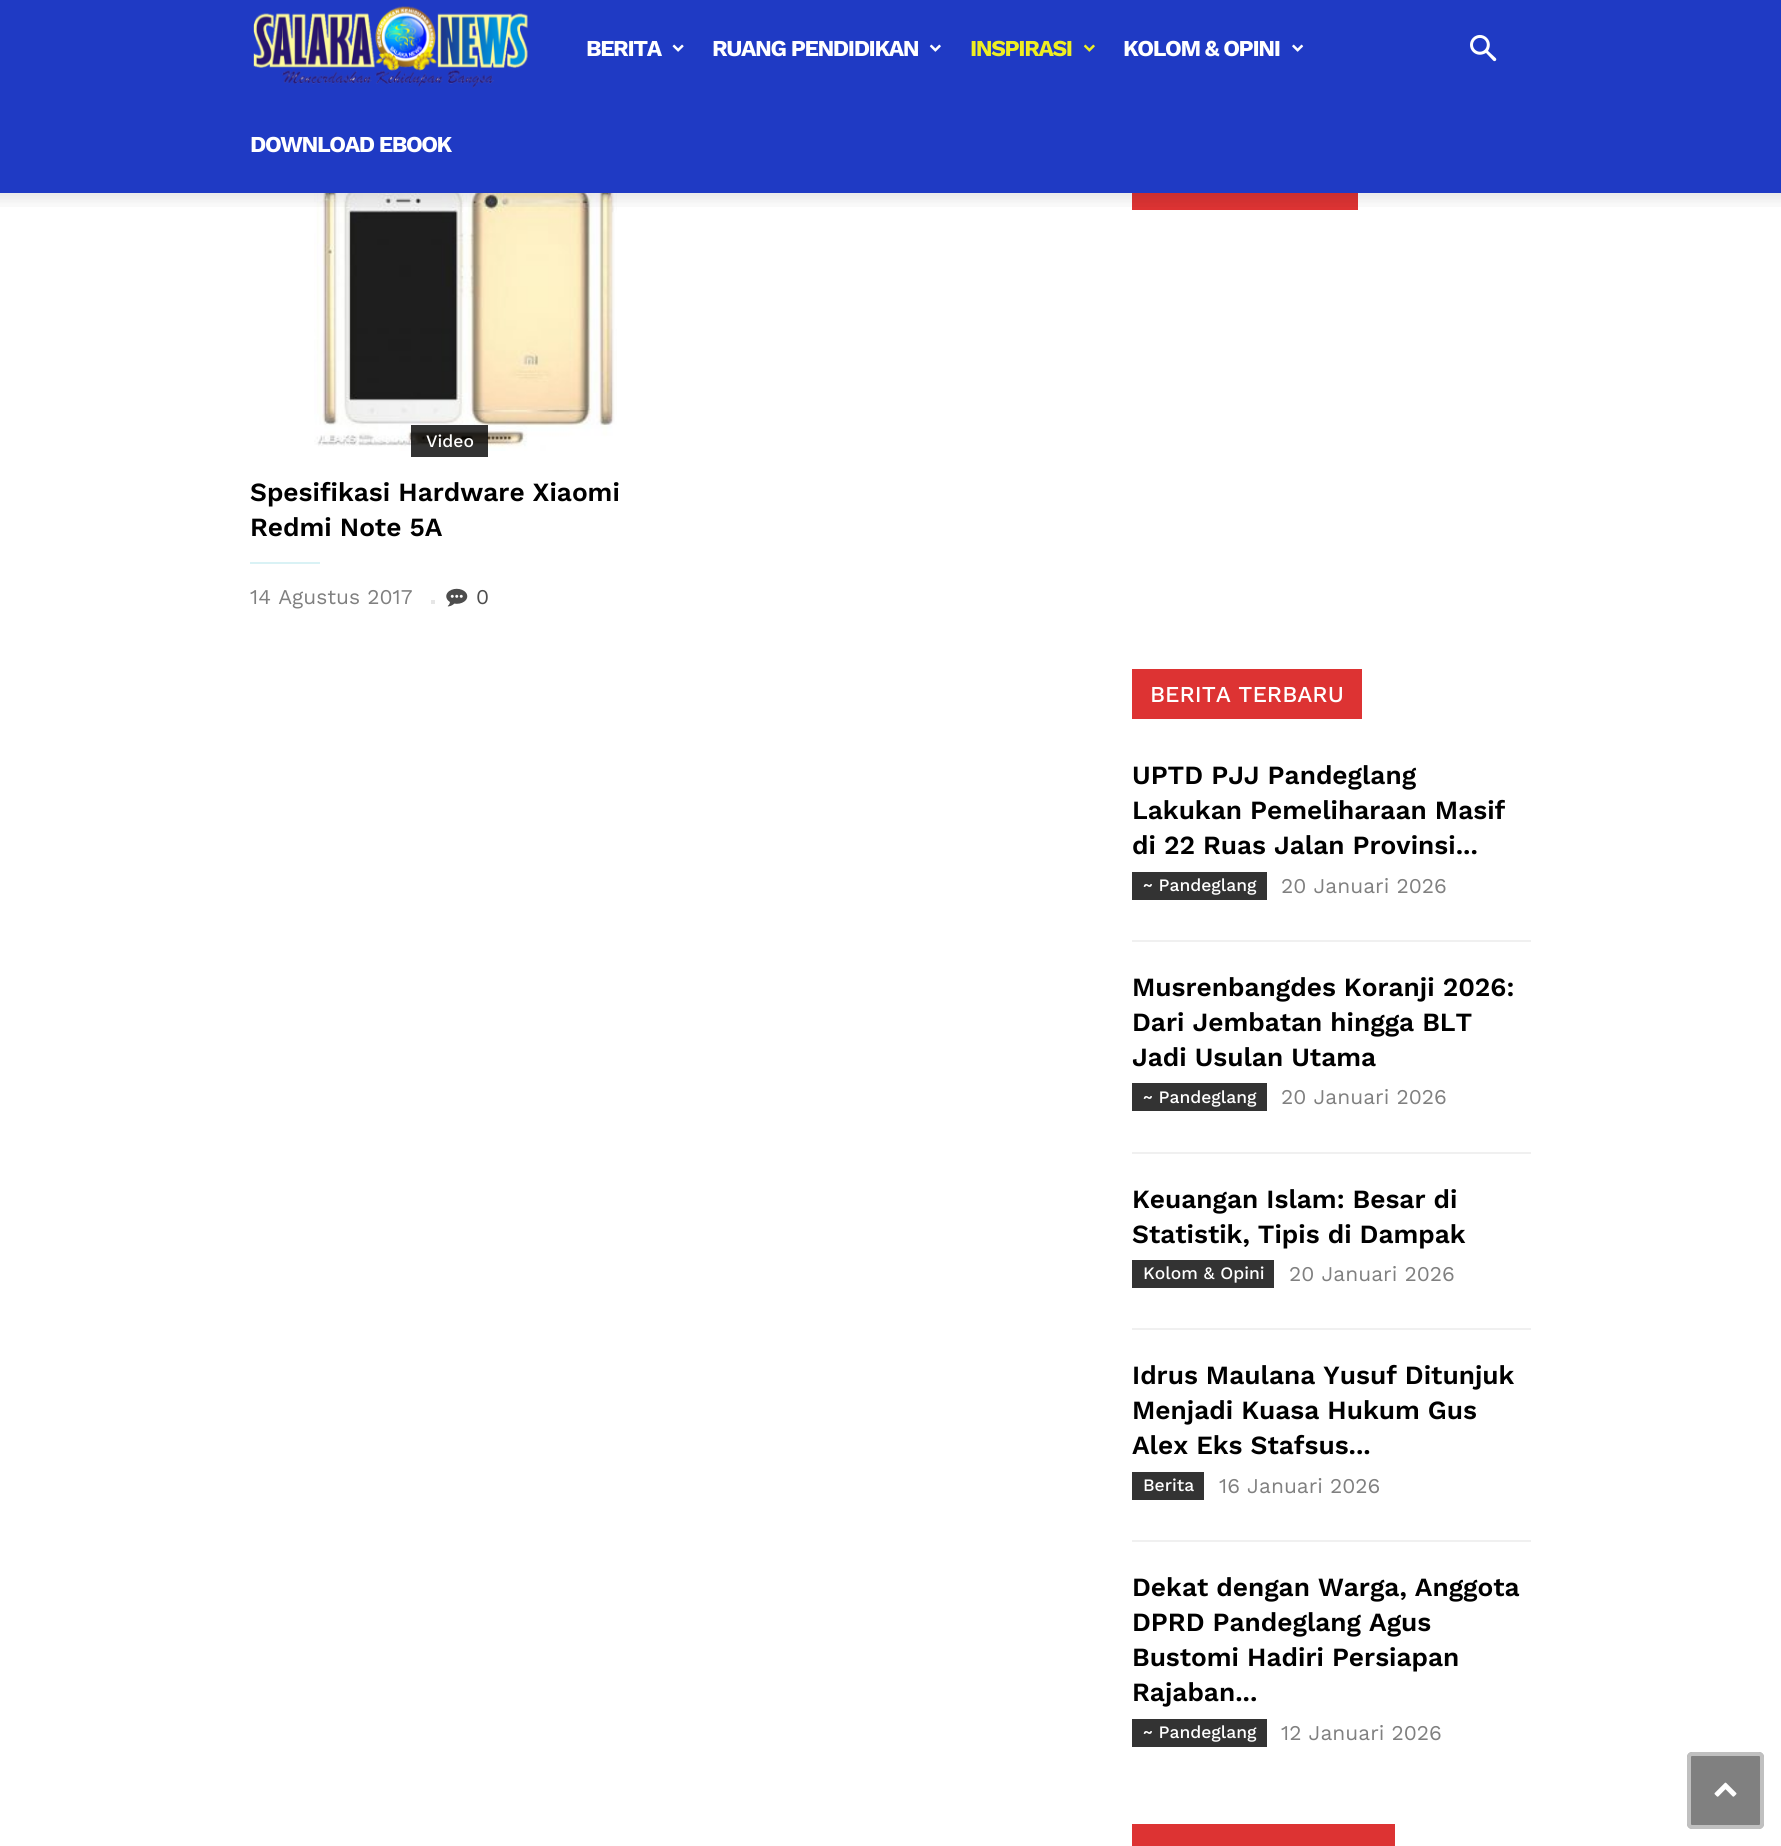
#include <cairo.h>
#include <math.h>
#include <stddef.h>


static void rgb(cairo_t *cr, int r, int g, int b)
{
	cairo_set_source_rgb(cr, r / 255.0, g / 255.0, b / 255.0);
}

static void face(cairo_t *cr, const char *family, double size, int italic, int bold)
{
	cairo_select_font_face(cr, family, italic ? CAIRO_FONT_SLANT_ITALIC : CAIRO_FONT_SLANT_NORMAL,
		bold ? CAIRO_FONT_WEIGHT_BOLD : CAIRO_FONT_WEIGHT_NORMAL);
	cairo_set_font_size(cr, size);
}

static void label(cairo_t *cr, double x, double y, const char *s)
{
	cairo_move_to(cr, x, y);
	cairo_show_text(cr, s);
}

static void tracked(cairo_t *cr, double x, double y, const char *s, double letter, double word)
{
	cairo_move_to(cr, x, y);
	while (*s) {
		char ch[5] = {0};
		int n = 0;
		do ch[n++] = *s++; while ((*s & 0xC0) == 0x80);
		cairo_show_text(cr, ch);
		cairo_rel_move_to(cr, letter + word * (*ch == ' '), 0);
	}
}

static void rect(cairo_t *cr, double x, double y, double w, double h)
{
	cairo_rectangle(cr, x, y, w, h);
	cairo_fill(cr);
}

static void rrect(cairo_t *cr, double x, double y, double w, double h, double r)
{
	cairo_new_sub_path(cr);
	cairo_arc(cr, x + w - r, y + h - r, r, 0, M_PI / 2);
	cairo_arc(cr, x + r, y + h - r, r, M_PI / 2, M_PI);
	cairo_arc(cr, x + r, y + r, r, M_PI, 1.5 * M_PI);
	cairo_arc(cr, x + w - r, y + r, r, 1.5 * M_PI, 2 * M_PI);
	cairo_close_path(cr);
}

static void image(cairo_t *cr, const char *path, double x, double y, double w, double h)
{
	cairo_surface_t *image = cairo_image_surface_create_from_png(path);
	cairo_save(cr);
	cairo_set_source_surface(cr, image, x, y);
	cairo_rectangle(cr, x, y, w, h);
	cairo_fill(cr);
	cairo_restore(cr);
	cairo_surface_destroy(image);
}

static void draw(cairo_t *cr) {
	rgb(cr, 255, 255, 255);
	cairo_paint(cr);
	rgb(cr, 31, 58, 196);
	rect(cr, 0, 0, 1781, 193);
	image(cr, "image0.png", 253, 6, 275, 82);
	face(cr, "Work Sans", 22.75, 0, 1);
	rgb(cr, 255, 255, 255);
	tracked(cr, 586, 56, "BERITA", -1.4, 0);
	image(cr, "image1.png", 672, 44, 12, 8);
	tracked(cr, 712, 56, "RUANG PENDIDIKAN", -1.4, 0);
	image(cr, "image2.png", 929, 44, 12, 8);
	rgb(cr, 238, 238, 34);
	tracked(cr, 970, 56, "INSPIRASI", -1.4, 0);
	image(cr, "image3.png", 1083, 44, 12, 8);
	rgb(cr, 255, 255, 255);
	tracked(cr, 1123, 56, "KOLOM & OPINI", -1.4, 0);
	image(cr, "image4.png", 1292, 44, 12, 8);
	tracked(cr, 250, 152, "DOWNLOAD EBOOK", -1.4, 0);
	image(cr, "image5.png", 1470, 34, 27, 28);
	image(cr, "image7.png", 314, 193, 303, 258);
	rgb(cr, 221, 51, 51);
	rect(cr, 1132, 193, 226, 17);
	image(cr, "image6.png", 0, 193, 1781, 14);
	cairo_set_source_rgba(cr, 0, 0, 0, 0.8);
	rect(cr, 411, 425, 77, 32);
	face(cr, "Work Sans Medium", 17.5, 0, 0);
	rgb(cr, 255, 255, 255);
	label(cr, 426, 447, "Video");
	face(cr, "Work Sans SemiBold", 26.25, 0, 0);
	rgb(cr, 0, 0, 0);
	label(cr, 250, 501, "Spesifikasi Hardware Xiaomi");
	label(cr, 250, 536, "Redmi Note 5A");
	rgb(cr, 217, 242, 245);
	rect(cr, 250, 562, 70, 2);
	face(cr, "Work Sans", 21, 0, 0);
	rgb(cr, 128, 128, 128);
	label(cr, 250, 604, "14 Agustus 2017");
	rgb(cr, 230, 230, 230);
	rect(cr, 431, 600, 4, 4);
	image(cr, "image8.png", 446, 588, 22, 19);
	rgb(cr, 77, 77, 77);
	label(cr, 476, 604, "0");
	rgb(cr, 221, 51, 51);
	rect(cr, 1132, 669, 230, 50);
	face(cr, "Work Sans Medium", 22.75, 0, 0);
	rgb(cr, 255, 255, 255);
	label(cr, 1150, 702, "BERITA TERBARU");
	face(cr, "Work Sans SemiBold", 26.25, 0, 0);
	rgb(cr, 0, 0, 0);
	label(cr, 1132, 784, "UPTD PJJ Pandeglang");
	label(cr, 1132, 819, "Lakukan Pemeliharaan Masif");
	label(cr, 1132, 854, "di 22 Ruas Jalan Provinsi...");
	rgb(cr, 51, 51, 51);
	rect(cr, 1132, 872, 135, 28);
	face(cr, "Work Sans Medium", 17.5, 0, 0);
	rgb(cr, 255, 255, 255);
	label(cr, 1143, 891, "~ Pandeglang");
	face(cr, "Work Sans", 21, 0, 0);
	rgb(cr, 128, 128, 128);
	label(cr, 1281, 893, "20 Januari 2026");
	rgb(cr, 240, 240, 240);
	rect(cr, 1132, 940, 399, 2);
	face(cr, "Work Sans SemiBold", 26.25, 0, 0);
	rgb(cr, 0, 0, 0);
	label(cr, 1132, 996, "Musrenbangdes Koranji 2026:");
	label(cr, 1132, 1031, "Dari Jembatan hingga BLT");
	label(cr, 1132, 1066, "Jadi Usulan Utama");
	rgb(cr, 51, 51, 51);
	rect(cr, 1132, 1083, 135, 28);
	face(cr, "Work Sans Medium", 17.5, 0, 0);
	rgb(cr, 255, 255, 255);
	label(cr, 1143, 1103, "~ Pandeglang");
	face(cr, "Work Sans", 21, 0, 0);
	rgb(cr, 128, 128, 128);
	label(cr, 1281, 1104, "20 Januari 2026");
	rgb(cr, 240, 240, 240);
	rect(cr, 1132, 1152, 399, 2);
	face(cr, "Work Sans SemiBold", 26.25, 0, 0);
	rgb(cr, 0, 0, 0);
	label(cr, 1132, 1208, "Keuangan Islam: Besar di");
	label(cr, 1132, 1243, "Statistik, Tipis di Dampak");
	rgb(cr, 51, 51, 51);
	rect(cr, 1132, 1260, 142, 28);
	face(cr, "Work Sans Medium", 17.5, 0, 0);
	rgb(cr, 255, 255, 255);
	label(cr, 1143, 1279, "Kolom & Opini");
	face(cr, "Work Sans", 21, 0, 0);
	rgb(cr, 128, 128, 128);
	label(cr, 1289, 1281, "20 Januari 2026");
	rgb(cr, 240, 240, 240);
	rect(cr, 1132, 1328, 399, 2);
	face(cr, "Work Sans SemiBold", 26.25, 0, 0);
	rgb(cr, 0, 0, 0);
	label(cr, 1132, 1384, "Idrus Maulana Yusuf Ditunjuk");
	label(cr, 1132, 1419, "Menjadi Kuasa Hukum Gus");
	label(cr, 1132, 1454, "Alex Eks Stafsus...");
	rgb(cr, 51, 51, 51);
	rect(cr, 1132, 1472, 72, 28);
	face(cr, "Work Sans Medium", 17.5, 0, 0);
	rgb(cr, 255, 255, 255);
	label(cr, 1143, 1491, "Berita");
	face(cr, "Work Sans", 21, 0, 0);
	rgb(cr, 128, 128, 128);
	label(cr, 1219, 1493, "16 Januari 2026");
	rgb(cr, 240, 240, 240);
	rect(cr, 1132, 1540, 399, 2);
	face(cr, "Work Sans SemiBold", 26.25, 0, 0);
	rgb(cr, 0, 0, 0);
	label(cr, 1132, 1596, "Dekat dengan Warga, Anggota");
	label(cr, 1132, 1631, "DPRD Pandeglang Agus");
	label(cr, 1132, 1666, "Bustomi Hadiri Persiapan");
	label(cr, 1132, 1701, "Rajaban...");
	rgb(cr, 51, 51, 51);
	rect(cr, 1132, 1719, 135, 28);
	face(cr, "Work Sans Medium", 17.5, 0, 0);
	rgb(cr, 255, 255, 255);
	label(cr, 1143, 1738, "~ Pandeglang");
	face(cr, "Work Sans", 21, 0, 0);
	rgb(cr, 128, 128, 128);
	label(cr, 1281, 1740, "12 Januari 2026");
	rgb(cr, 221, 51, 51);
	rect(cr, 1132, 1824, 263, 22);
	rgb(cr, 128, 128, 128);
	rrect(cr, 1687, 1752, 77, 77, 5);
	cairo_fill(cr);
	rrect(cr, 1689, 1754, 73, 73, 3);
	cairo_set_source_rgba(cr, 1, 1, 1, 0.5);
	cairo_set_line_width(cr, 4);
	cairo_stroke(cr);
	image(cr, "image9.png", 1714, 1782, 23, 15);
}

int main(void) {
	cairo_surface_t *surface = cairo_image_surface_create(CAIRO_FORMAT_RGB24, 1781, 1846);
	cairo_t *cr = cairo_create(surface);
	cairo_font_options_t *options = cairo_font_options_create();
	cairo_font_options_set_hint_metrics(options, CAIRO_HINT_METRICS_OFF);
	cairo_font_options_set_hint_style(options, CAIRO_HINT_STYLE_NONE);
	cairo_set_font_options(cr, options);
	cairo_set_miter_limit(cr, 4);
	draw(cr);
	cairo_surface_write_to_png(surface, "render.png");
	cairo_font_options_destroy(options);
	cairo_destroy(cr);
	cairo_surface_destroy(surface);
	return 0;
}
